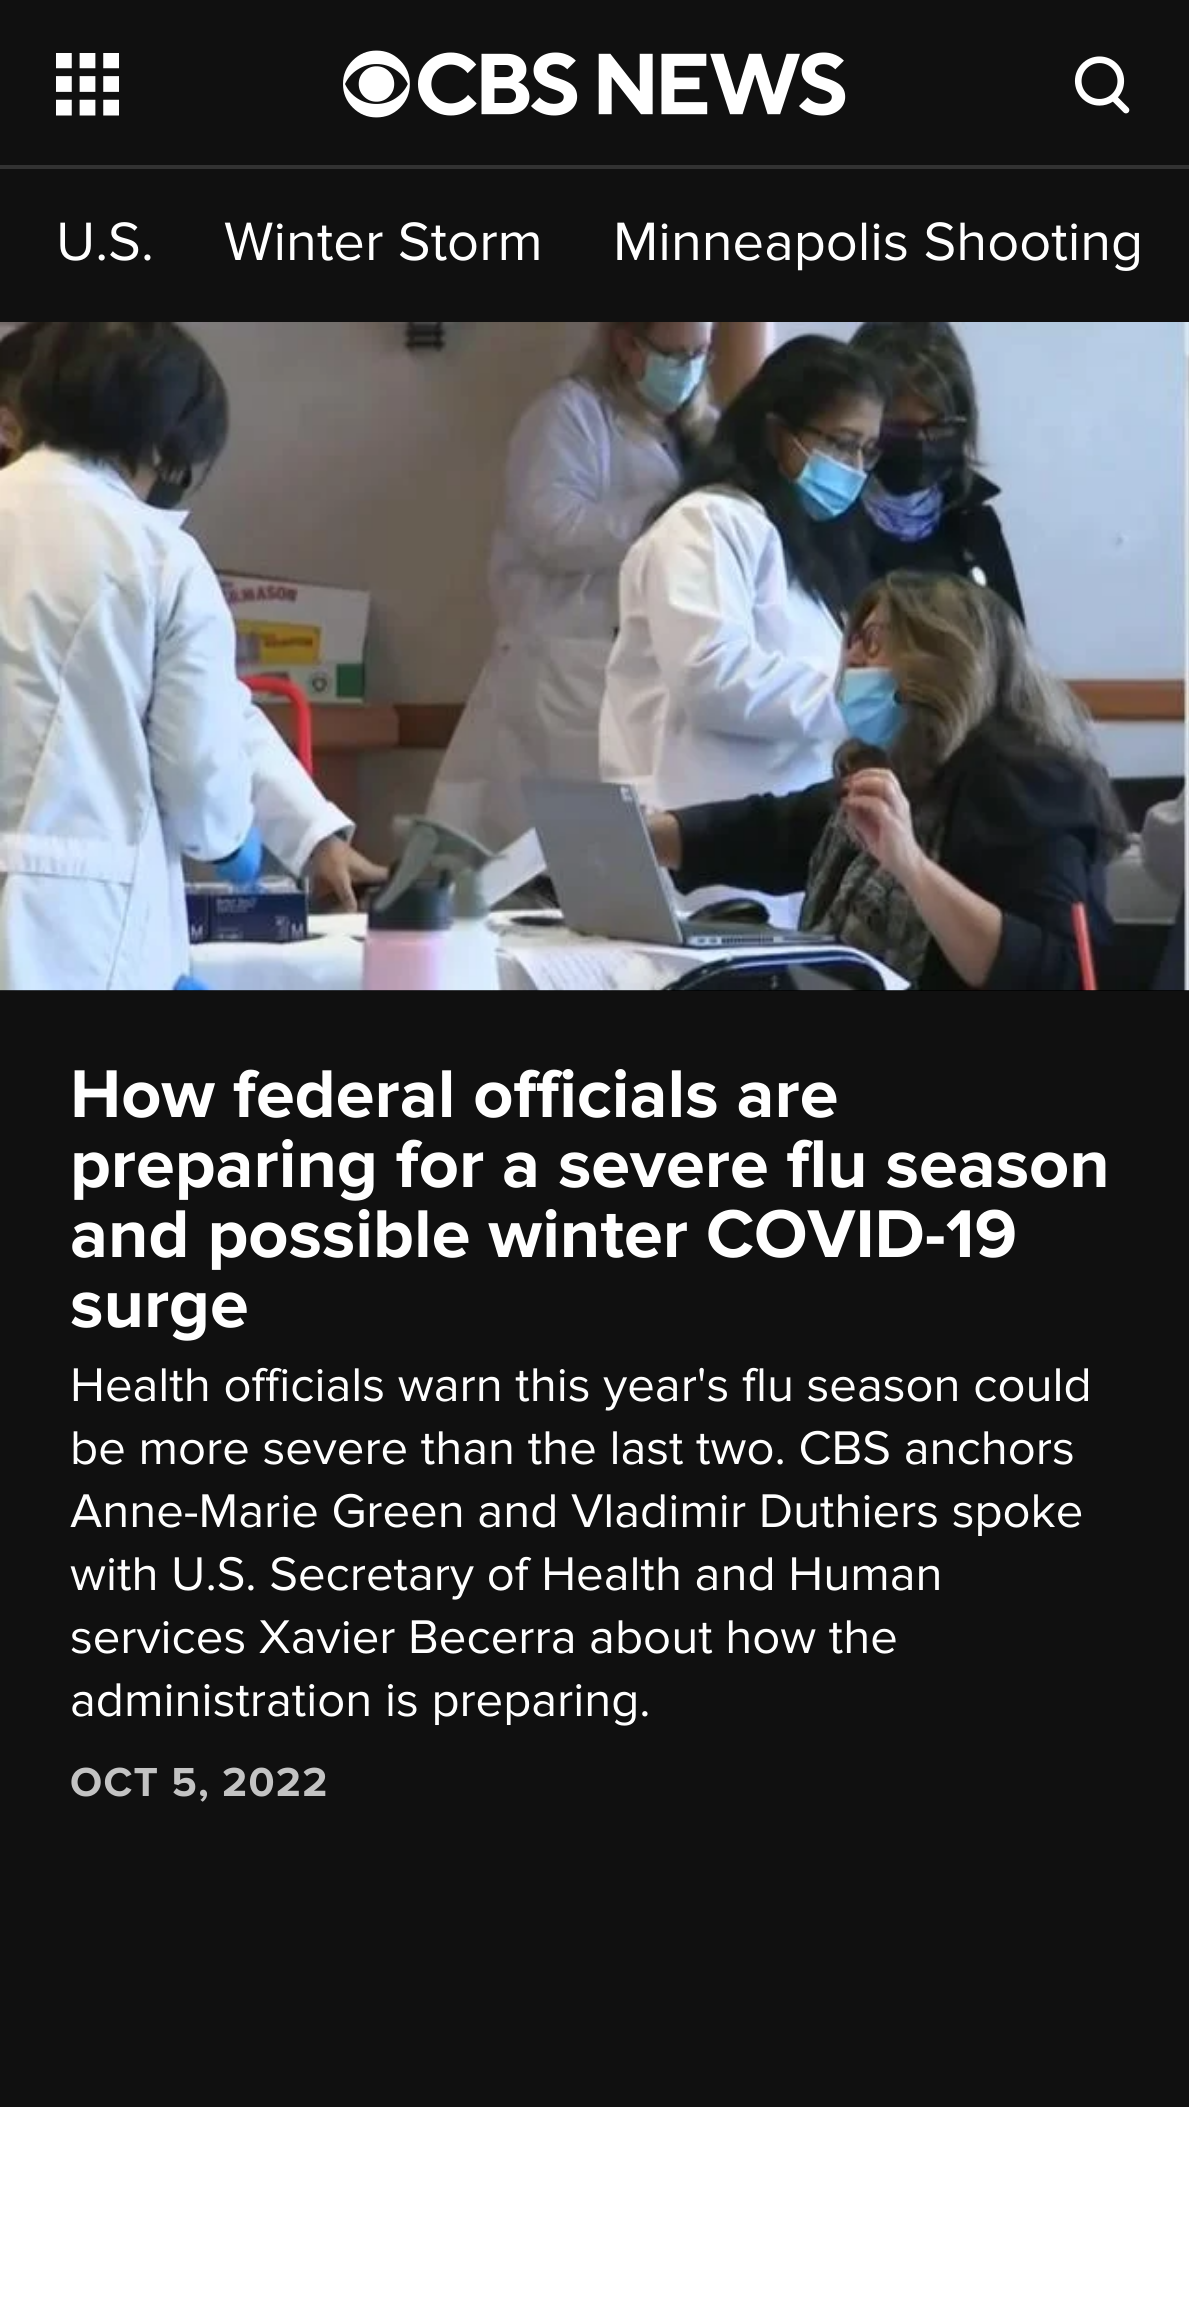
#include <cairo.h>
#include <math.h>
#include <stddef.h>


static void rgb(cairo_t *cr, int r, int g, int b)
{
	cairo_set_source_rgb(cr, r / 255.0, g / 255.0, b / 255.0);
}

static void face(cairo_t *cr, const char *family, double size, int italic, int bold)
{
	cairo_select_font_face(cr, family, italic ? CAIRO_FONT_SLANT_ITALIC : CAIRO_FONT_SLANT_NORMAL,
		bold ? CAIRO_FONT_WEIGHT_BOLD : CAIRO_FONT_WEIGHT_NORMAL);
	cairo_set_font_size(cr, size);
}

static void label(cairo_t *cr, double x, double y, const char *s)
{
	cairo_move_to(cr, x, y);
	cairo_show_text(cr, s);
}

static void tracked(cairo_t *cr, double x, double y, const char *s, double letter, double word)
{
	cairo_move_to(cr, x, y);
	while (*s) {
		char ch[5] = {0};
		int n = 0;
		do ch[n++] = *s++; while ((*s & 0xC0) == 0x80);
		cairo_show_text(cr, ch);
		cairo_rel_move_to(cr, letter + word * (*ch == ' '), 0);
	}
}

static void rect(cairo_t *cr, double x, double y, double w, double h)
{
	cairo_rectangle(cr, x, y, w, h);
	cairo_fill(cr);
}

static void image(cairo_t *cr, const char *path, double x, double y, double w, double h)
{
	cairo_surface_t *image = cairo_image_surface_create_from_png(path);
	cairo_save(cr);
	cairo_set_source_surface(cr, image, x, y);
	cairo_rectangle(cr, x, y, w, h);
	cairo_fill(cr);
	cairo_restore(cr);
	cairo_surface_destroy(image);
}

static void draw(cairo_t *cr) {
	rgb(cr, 255, 255, 255);
	cairo_paint(cr);
	rgb(cr, 16, 16, 16);
	rect(cr, 0, 0, 1189, 165);
	rgb(cr, 50, 50, 50);
	rect(cr, 0, 165, 1189, 4);
	image(cr, "image0.png", 56, 53, 63, 63);
	image(cr, "image1.png", 343, 50, 503, 68);
	image(cr, "image2.png", 1074, 56, 56, 58);
	rgb(cr, 16, 16, 16);
	rect(cr, 0, 169, 1189, 153);
	face(cr, "Proxima Nova", 56, 0, 0);
	rgb(cr, 255, 255, 255);
	label(cr, 56, 260, "U.S.");
	label(cr, 224, 260, "Winter Storm");
	label(cr, 613, 260, "Minneapolis Shooting");
	rgb(cr, 0, 0, 0);
	rect(cr, 0, 990, 1189, 1);
	image(cr, "image3.png", 0, 322, 1189, 669);
	rgb(cr, 16, 16, 16);
	rect(cr, 0, 991, 1189, 1116);
	face(cr, "Proxima Nova", 70, 0, 1);
	rgb(cr, 255, 255, 255);
	label(cr, 70, 1117, "How federal officials are");
	label(cr, 70, 1187, "preparing for a severe flu season");
	label(cr, 70, 1257, "and possible winter COVID-19");
	label(cr, 70, 1327, "surge");
	face(cr, "Proxima Nova", 49, 0, 0);
	label(cr, 70, 1401, "Health officials warn this year's flu season could");
	label(cr, 70, 1464, "be more severe than the last two. CBS anchors");
	label(cr, 70, 1527, "Anne-Marie Green and Vladimir Duthiers spoke");
	label(cr, 70, 1590, "with U.S. Secretary of Health and Human");
	label(cr, 70, 1653, "services Xavier Becerra about how the");
	label(cr, 70, 1716, "administration is preparing.");
	face(cr, "Proxima Nova", 42, 0, 1);
	rgb(cr, 195, 195, 195);
	tracked(cr, 70, 1796, "OCT 5, 2022", 1.25, 0);
}

int main(void) {
	cairo_surface_t *surface = cairo_image_surface_create(CAIRO_FORMAT_RGB24, 1189, 2300);
	cairo_t *cr = cairo_create(surface);
	cairo_font_options_t *options = cairo_font_options_create();
	cairo_font_options_set_hint_metrics(options, CAIRO_HINT_METRICS_OFF);
	cairo_font_options_set_hint_style(options, CAIRO_HINT_STYLE_NONE);
	cairo_set_font_options(cr, options);
	cairo_set_miter_limit(cr, 4);
	draw(cr);
	cairo_surface_write_to_png(surface, "render.png");
	cairo_font_options_destroy(options);
	cairo_destroy(cr);
	cairo_surface_destroy(surface);
	return 0;
}
